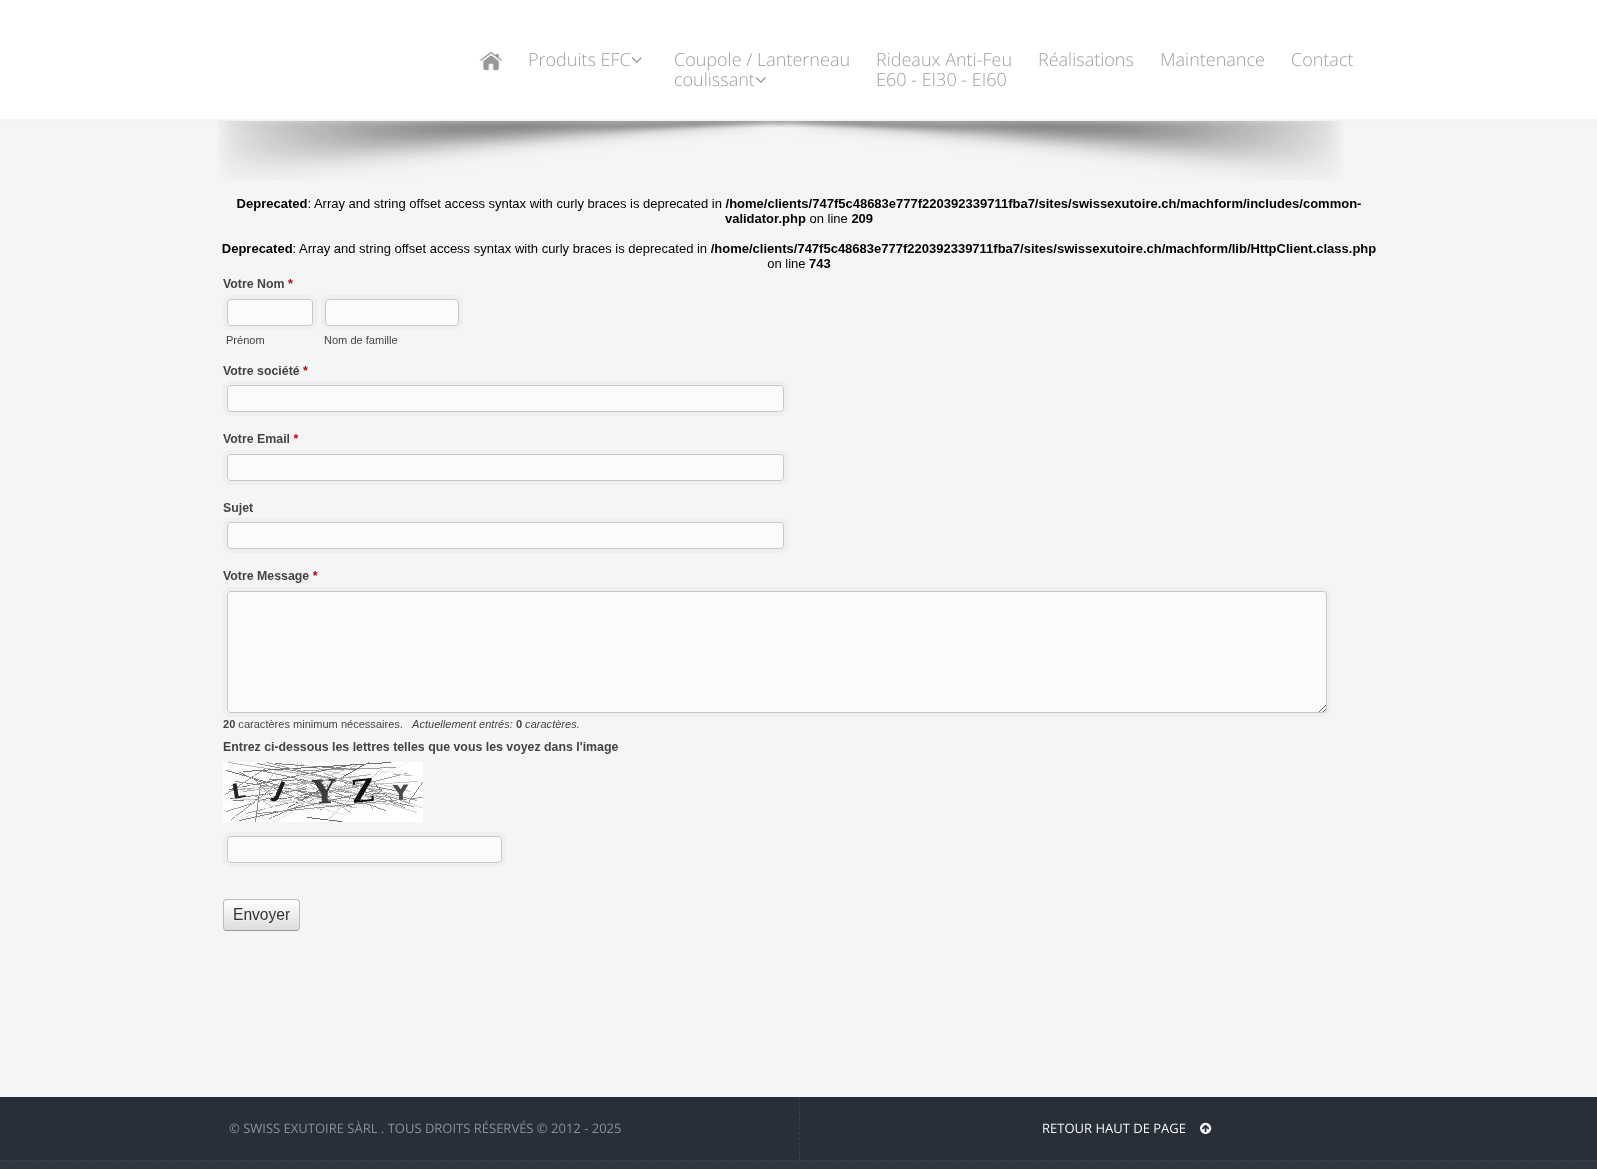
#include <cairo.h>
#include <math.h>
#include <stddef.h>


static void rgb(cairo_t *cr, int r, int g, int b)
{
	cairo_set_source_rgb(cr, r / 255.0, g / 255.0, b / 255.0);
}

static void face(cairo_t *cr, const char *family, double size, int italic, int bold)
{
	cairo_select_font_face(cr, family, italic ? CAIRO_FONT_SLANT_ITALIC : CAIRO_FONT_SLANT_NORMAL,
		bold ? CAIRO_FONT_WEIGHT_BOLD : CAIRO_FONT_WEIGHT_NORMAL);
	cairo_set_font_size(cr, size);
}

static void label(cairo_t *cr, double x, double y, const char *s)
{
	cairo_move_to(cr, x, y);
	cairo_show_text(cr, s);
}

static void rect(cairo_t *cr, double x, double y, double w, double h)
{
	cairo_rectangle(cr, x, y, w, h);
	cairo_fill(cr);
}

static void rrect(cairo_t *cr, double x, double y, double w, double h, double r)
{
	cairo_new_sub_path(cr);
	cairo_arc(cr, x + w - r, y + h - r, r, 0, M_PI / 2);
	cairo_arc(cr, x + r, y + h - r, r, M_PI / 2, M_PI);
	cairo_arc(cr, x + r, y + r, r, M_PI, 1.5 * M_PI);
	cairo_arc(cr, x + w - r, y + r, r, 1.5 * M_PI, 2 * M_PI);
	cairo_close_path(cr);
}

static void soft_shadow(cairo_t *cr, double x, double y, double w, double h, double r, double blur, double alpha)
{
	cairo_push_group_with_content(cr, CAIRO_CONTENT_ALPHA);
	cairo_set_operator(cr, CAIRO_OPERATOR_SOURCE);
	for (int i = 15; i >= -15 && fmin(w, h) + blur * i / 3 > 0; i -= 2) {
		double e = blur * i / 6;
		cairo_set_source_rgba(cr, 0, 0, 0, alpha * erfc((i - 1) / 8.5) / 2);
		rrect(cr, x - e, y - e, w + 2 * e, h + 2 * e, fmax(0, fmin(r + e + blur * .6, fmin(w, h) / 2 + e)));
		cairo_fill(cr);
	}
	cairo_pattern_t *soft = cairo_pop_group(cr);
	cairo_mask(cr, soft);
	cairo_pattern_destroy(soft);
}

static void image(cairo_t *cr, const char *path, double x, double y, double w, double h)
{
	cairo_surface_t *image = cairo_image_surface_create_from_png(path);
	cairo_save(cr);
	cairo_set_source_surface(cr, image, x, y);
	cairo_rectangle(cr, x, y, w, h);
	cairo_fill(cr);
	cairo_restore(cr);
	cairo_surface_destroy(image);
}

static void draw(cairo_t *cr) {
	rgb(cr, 46, 54, 63);
	cairo_paint(cr);
	rgb(cr, 244, 245, 247);
	rect(cr, 0, 120, 1597, 977);
	image(cr, "image3.png", 218, 121, 1125, 59);
	rgb(cr, 238, 238, 238);
	soft_shadow(cr, 0, 0, 1597, 120, 0, 4, 1);
	rgb(cr, 255, 255, 255);
	rect(cr, 0, 0, 1597, 119);
	rgb(cr, 244, 245, 247);
	rect(cr, 0, 119, 1597, 1);
	image(cr, "image0.png", 479, 52, 23, 19);
	face(cr, "Open Sans Light", 18, 0, 0);
	rgb(cr, 156, 156, 156);
	label(cr, 528, 66, "Produits EFC");
	image(cr, "image1.png", 631, 57, 11, 6);
	label(cr, 674, 66, "Coupole / Lanterneau");
	label(cr, 674, 86, "coulissant");
	image(cr, "image1.png", 755, 77, 11, 6);
	label(cr, 876, 66, "Rideaux Anti-Feu");
	label(cr, 876, 86, "E60 - EI30 - EI60");
	label(cr, 1038, 66, "Réalisations");
	label(cr, 1160, 66, "Maintenance");
	label(cr, 1291, 66, "Contact");
	image(cr, "image2.png", 222, 199, 1154, 732);
	rgb(cr, 41, 47, 56);
	rect(cr, 0, 1097, 1597, 63);
	face(cr, "Open Sans", 13, 0, 0);
	rgb(cr, 135, 145, 159);
	label(cr, 229, 1133, "© SWISS EXUTOIRE SÀRL . TOUS DROITS RÉSERVÉS © 2012 - 2025");
	cairo_new_path(cr);
	cairo_move_to(cr, 799.5, 1097);
	cairo_line_to(cr, 799.5, 1160);
	rgb(cr, 64, 62, 68);
	cairo_set_line_width(cr, 1);
	cairo_set_dash(cr, (double[]){3, 2}, 2, 0);
	cairo_stroke(cr);
	rgb(cr, 255, 255, 255);
	label(cr, 1042, 1133, "RETOUR HAUT DE PAGE");
	image(cr, "image4.png", 1200, 1122, 12, 12);
	cairo_new_path(cr);
	cairo_move_to(cr, 0, 1160.5);
	cairo_line_to(cr, 1597, 1160.5);
	rgb(cr, 64, 62, 68);
	cairo_stroke(cr);
}

int main(void) {
	cairo_surface_t *surface = cairo_image_surface_create(CAIRO_FORMAT_RGB24, 1597, 1169);
	cairo_t *cr = cairo_create(surface);
	cairo_font_options_t *options = cairo_font_options_create();
	cairo_font_options_set_hint_metrics(options, CAIRO_HINT_METRICS_OFF);
	cairo_font_options_set_hint_style(options, CAIRO_HINT_STYLE_NONE);
	cairo_set_font_options(cr, options);
	cairo_set_miter_limit(cr, 4);
	draw(cr);
	cairo_surface_write_to_png(surface, "render.png");
	cairo_font_options_destroy(options);
	cairo_destroy(cr);
	cairo_surface_destroy(surface);
	return 0;
}
